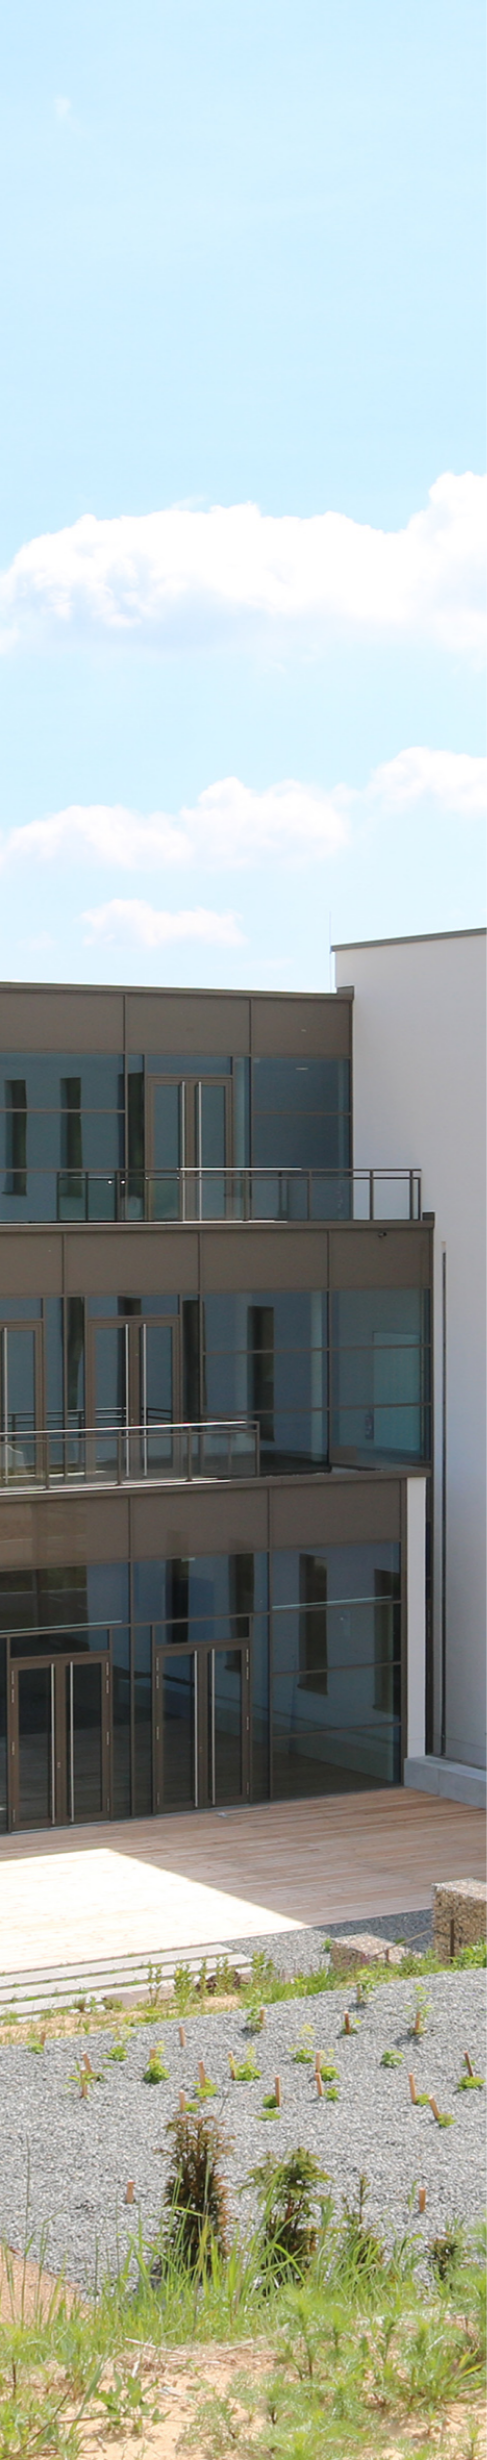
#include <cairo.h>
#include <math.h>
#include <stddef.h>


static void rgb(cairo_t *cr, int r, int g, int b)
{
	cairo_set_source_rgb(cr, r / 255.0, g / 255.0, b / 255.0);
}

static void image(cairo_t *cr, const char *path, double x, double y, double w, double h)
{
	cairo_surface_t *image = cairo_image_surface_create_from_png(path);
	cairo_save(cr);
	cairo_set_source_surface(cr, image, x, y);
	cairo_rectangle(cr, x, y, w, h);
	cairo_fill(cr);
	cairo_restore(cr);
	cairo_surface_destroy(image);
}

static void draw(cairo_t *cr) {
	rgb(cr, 255, 255, 255);
	cairo_paint(cr);
	image(cr, "image0.png", 0, 0, 487, 2460);
}

int main(void) {
	cairo_surface_t *surface = cairo_image_surface_create(CAIRO_FORMAT_RGB24, 487, 2460);
	cairo_t *cr = cairo_create(surface);
	cairo_font_options_t *options = cairo_font_options_create();
	cairo_font_options_set_hint_metrics(options, CAIRO_HINT_METRICS_OFF);
	cairo_font_options_set_hint_style(options, CAIRO_HINT_STYLE_NONE);
	cairo_set_font_options(cr, options);
	cairo_set_miter_limit(cr, 4);
	draw(cr);
	cairo_surface_write_to_png(surface, "render.png");
	cairo_font_options_destroy(options);
	cairo_destroy(cr);
	cairo_surface_destroy(surface);
	return 0;
}
